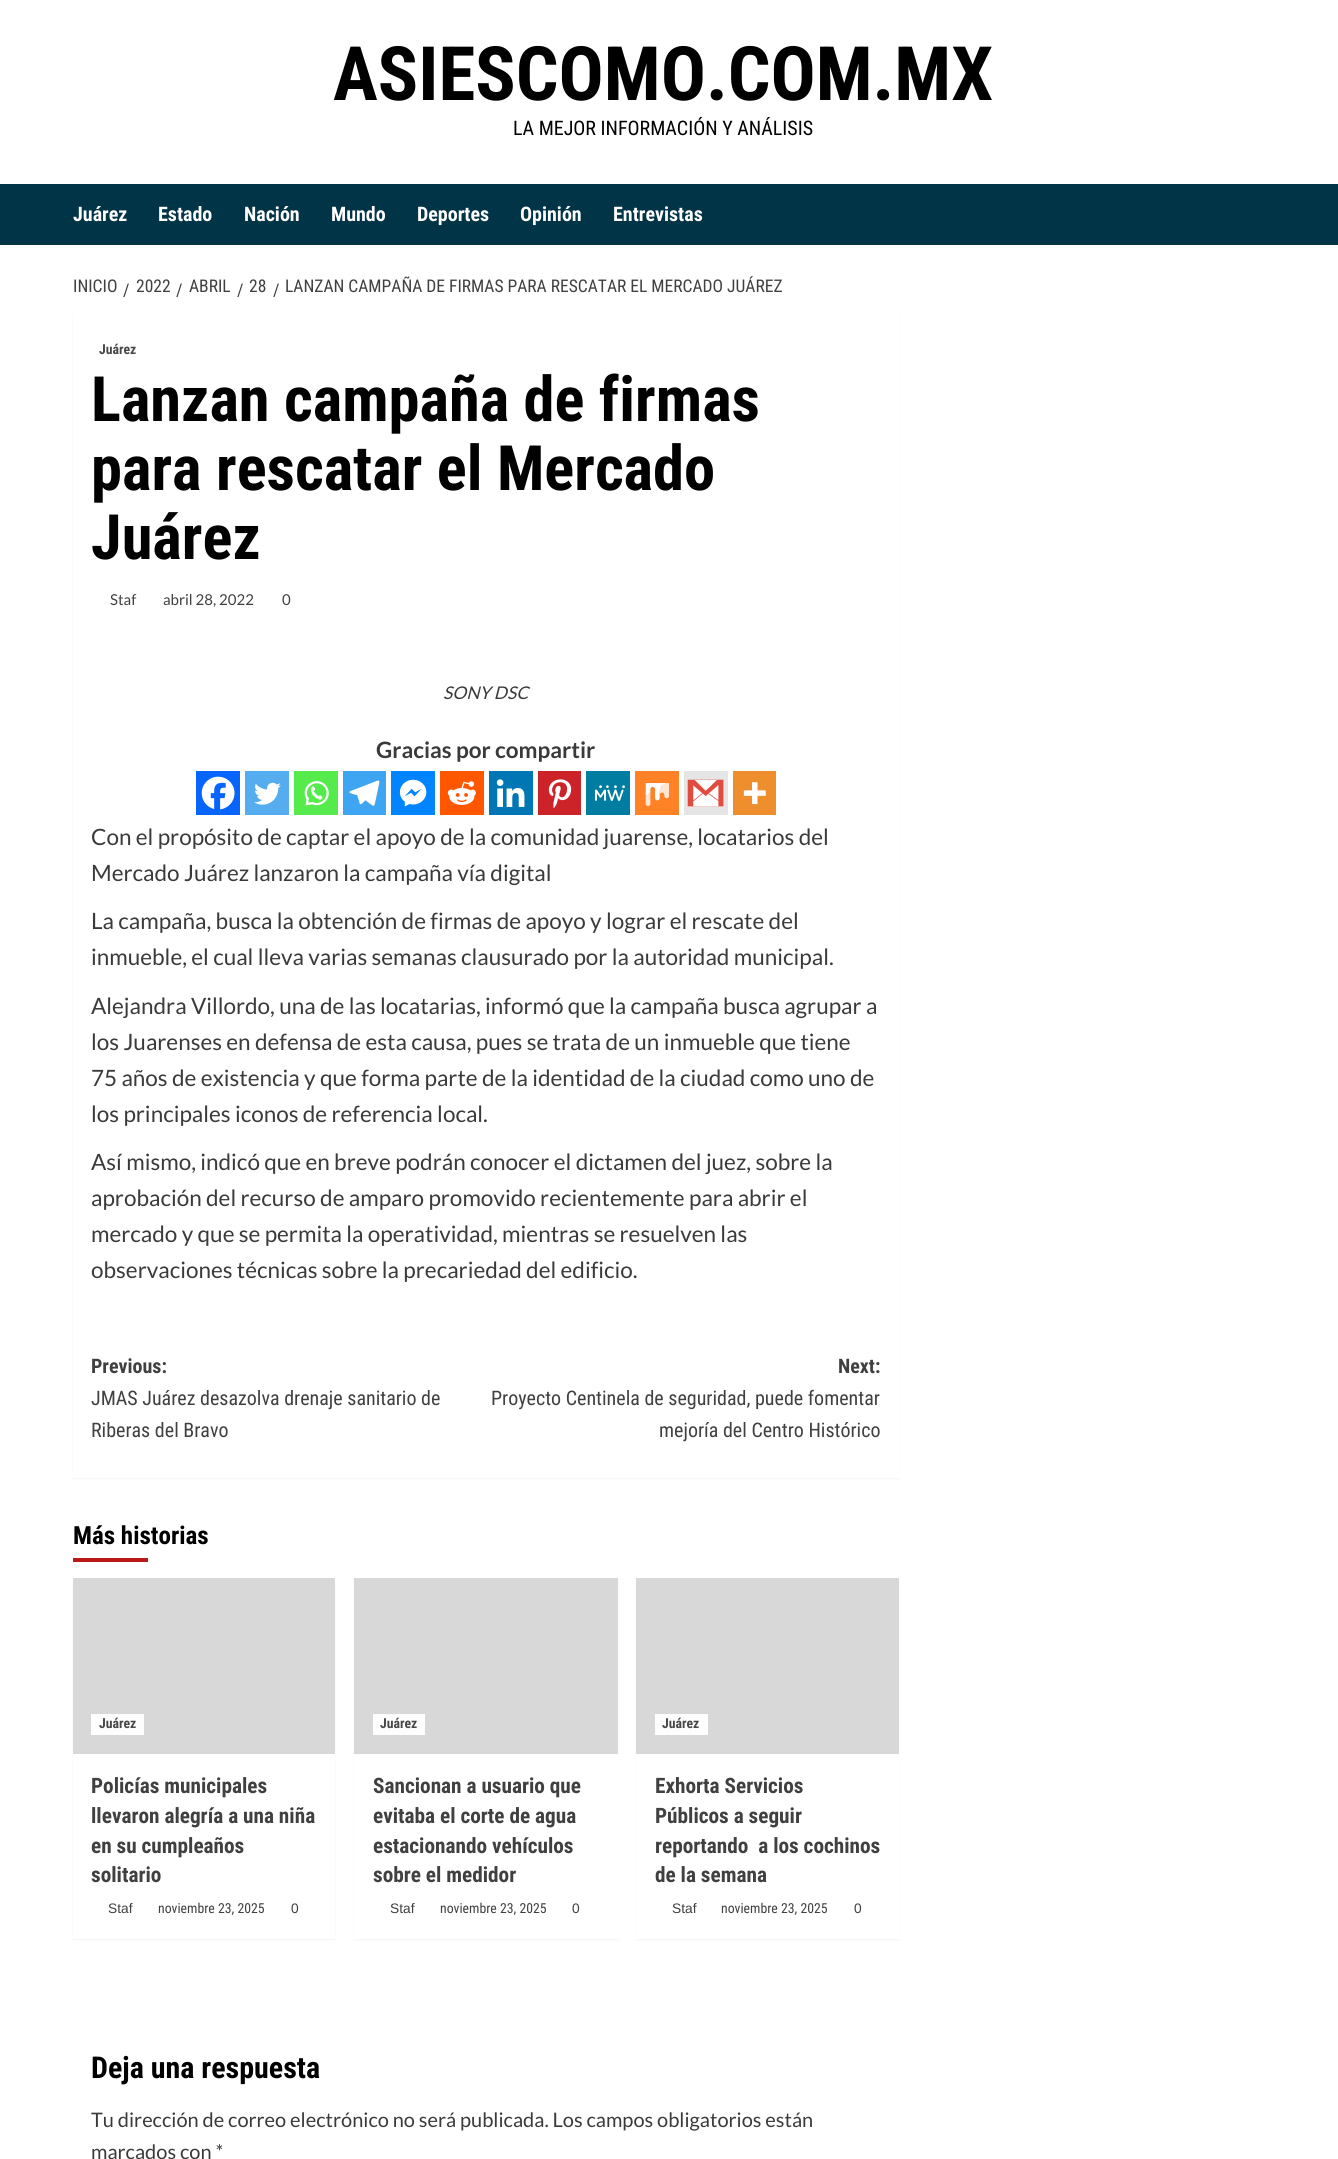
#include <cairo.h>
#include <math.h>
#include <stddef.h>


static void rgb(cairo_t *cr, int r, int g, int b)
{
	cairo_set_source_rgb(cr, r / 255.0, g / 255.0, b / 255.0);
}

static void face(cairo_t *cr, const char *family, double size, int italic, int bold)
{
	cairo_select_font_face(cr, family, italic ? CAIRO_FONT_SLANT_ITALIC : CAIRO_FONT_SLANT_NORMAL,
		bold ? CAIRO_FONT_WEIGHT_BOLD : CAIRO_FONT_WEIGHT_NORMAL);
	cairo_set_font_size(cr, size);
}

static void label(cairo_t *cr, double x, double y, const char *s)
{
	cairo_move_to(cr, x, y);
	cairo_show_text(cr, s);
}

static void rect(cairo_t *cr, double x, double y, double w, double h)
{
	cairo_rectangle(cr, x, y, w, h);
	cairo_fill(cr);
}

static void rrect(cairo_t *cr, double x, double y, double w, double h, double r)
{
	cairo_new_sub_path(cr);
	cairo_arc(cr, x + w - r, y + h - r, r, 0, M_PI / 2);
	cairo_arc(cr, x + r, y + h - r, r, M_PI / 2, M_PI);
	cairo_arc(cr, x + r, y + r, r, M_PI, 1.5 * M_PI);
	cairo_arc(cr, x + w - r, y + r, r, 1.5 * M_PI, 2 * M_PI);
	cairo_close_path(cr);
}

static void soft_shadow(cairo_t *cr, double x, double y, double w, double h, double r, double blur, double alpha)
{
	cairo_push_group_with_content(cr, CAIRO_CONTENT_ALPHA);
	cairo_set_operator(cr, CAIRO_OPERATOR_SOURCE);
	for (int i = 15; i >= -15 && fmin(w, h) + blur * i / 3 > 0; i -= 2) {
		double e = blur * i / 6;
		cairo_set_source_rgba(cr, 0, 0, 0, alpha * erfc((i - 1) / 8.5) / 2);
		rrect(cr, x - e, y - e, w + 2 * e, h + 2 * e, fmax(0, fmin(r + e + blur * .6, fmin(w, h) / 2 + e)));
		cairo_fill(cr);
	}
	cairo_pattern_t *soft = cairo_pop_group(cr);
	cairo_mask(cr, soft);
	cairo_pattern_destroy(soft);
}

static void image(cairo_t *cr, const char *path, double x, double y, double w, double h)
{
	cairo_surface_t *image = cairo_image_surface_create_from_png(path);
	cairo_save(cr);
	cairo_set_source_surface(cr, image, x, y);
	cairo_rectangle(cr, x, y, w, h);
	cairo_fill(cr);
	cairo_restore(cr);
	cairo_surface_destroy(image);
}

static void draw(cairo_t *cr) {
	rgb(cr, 255, 255, 255);
	cairo_paint(cr);
	face(cr, "Roboto Condensed", 75, 0, 1);
	rgb(cr, 0, 0, 0);
	label(cr, 333, 100, "ASIESCOMO.COM.MX");
	face(cr, "Roboto Condensed", 20, 0, 0);
	label(cr, 513, 135, "LA MEJOR INFORMACIÓN Y ANÁLISIS");
	rgb(cr, 0, 52, 70);
	rect(cr, 0, 184, 1338, 61);
	face(cr, "Roboto Condensed", 20, 0, 1);
	rgb(cr, 255, 255, 255);
	label(cr, 73, 221, "Juárez");
	label(cr, 158, 221, "Estado");
	label(cr, 244, 221, "Nación");
	label(cr, 331, 221, "Mundo");
	label(cr, 417, 221, "Deportes");
	label(cr, 520, 221, "Opinión");
	label(cr, 613, 221, "Entrevistas");
	face(cr, "Roboto Condensed", 17.5, 0, 0);
	rgb(cr, 64, 64, 64);
	label(cr, 73, 292, "INICIO");
	label(cr, 123, 296, "/");
	label(cr, 136, 292, "2022");
	label(cr, 176, 296, "/");
	label(cr, 189, 292, "ABRIL");
	label(cr, 237, 296, "/");
	label(cr, 249, 292, "28");
	label(cr, 273, 296, "/");
	label(cr, 285, 292, "LANZAN CAMPAÑA DE FIRMAS PARA RESCATAR EL MERCADO JUÁREZ");
	rgb(cr, 0, 0, 0);
	soft_shadow(cr, 73, 315, 826, 1164, 0, 1, 0.05);
	rgb(cr, 255, 255, 255);
	rect(cr, 73, 314, 826, 1164);
	face(cr, "Roboto Condensed", 13.75, 0, 1);
	rgb(cr, 72, 72, 72);
	label(cr, 99, 354, "Juárez");
	face(cr, "Roboto Condensed", 62.5, 0, 1);
	rgb(cr, 0, 0, 0);
	label(cr, 91, 421, "Lanzan campaña de firmas");
	label(cr, 91, 490, "para rescatar el Mercado");
	label(cr, 91, 559, "Juárez");
	face(cr, "Lato", 15, 0, 0);
	rgb(cr, 64, 64, 64);
	label(cr, 110, 605, "Staf");
	label(cr, 163, 605, "abril 28, 2022");
	label(cr, 282, 605, "0");
	face(cr, "Lato", 17.5, 1, 0);
	rgb(cr, 58, 58, 58);
	label(cr, 443, 699, "SONY DSC");
	face(cr, "Lato", 22.5, 0, 1);
	label(cr, 376, 758, "Gracias por compartir");
	rgb(cr, 7, 101, 254);
	rect(cr, 196, 771, 44, 44);
	image(cr, "image0.png", 201, 776, 34, 34);
	rgb(cr, 85, 172, 238);
	rect(cr, 245, 771, 44, 44);
	image(cr, "image1.png", 254, 782, 27, 23);
	rgb(cr, 85, 235, 76);
	rect(cr, 294, 771, 44, 44);
	image(cr, "image2.png", 304, 781, 25, 25);
	rgb(cr, 61, 165, 241);
	rect(cr, 343, 771, 43, 44);
	image(cr, "image3.png", 349, 780, 31, 26);
	rgb(cr, 0, 132, 255);
	rect(cr, 391, 771, 44, 44);
	image(cr, "image4.png", 399, 779, 28, 28);
	rgb(cr, 255, 87, 0);
	rect(cr, 440, 771, 44, 44);
	image(cr, "image5.png", 447, 781, 29, 24);
	rgb(cr, 0, 119, 181);
	rect(cr, 489, 771, 44, 44);
	image(cr, "image6.png", 496, 779, 29, 28);
	rgb(cr, 204, 35, 41);
	rect(cr, 538, 771, 43, 44);
	image(cr, "image7.png", 548, 779, 24, 30);
	rgb(cr, 0, 125, 161);
	rect(cr, 586, 771, 44, 44);
	image(cr, "image8.png", 595, 785, 30, 16);
	rgb(cr, 255, 130, 38);
	rect(cr, 635, 771, 44, 44);
	image(cr, "image9.png", 645, 783, 25, 24);
	rgb(cr, 229, 229, 229);
	rect(cr, 684, 771, 44, 44);
	image(cr, "image10.png", 687, 779, 37, 28);
	rgb(cr, 238, 142, 45);
	rect(cr, 733, 771, 43, 44);
	image(cr, "image11.png", 743, 782, 23, 23);
	face(cr, "Lato", 22.5, 0, 0);
	rgb(cr, 58, 58, 58);
	label(cr, 91, 845, "Con el propósito de captar el apoyo de la comunidad juarense, locatarios del");
	label(cr, 91, 881, "Mercado Juárez lanzaron la campaña vía digital");
	label(cr, 91, 929, "La campaña, busca la obtención de firmas de apoyo y lograr el rescate del");
	label(cr, 91, 965, "inmueble, el cual lleva varias semanas clausurado por la autoridad municipal.");
	label(cr, 91, 1014, "Alejandra Villordo, una de las locatarias, informó que la campaña busca agrupar a");
	label(cr, 91, 1050, "los Juarenses en defensa de esta causa, pues se trata de un inmueble que tiene");
	label(cr, 91, 1086, "75 años de existencia y que forma parte de la identidad de la ciudad como uno de");
	label(cr, 91, 1122, "los principales iconos de referencia local.");
	label(cr, 91, 1170, "Así mismo, indicó que en breve podrán conocer el dictamen del juez, sobre la");
	label(cr, 91, 1206, "aprobación del recurso de amparo promovido recientemente para abrir el");
	label(cr, 91, 1242, "mercado y que se permita la operatividad, mientras se resuelven las");
	label(cr, 91, 1278, "observaciones técnicas sobre la precariedad del edificio.");
	face(cr, "Roboto Condensed", 20, 0, 1);
	rgb(cr, 64, 64, 64);
	label(cr, 91, 1373, "Previous:");
	face(cr, "Roboto Condensed", 20, 0, 0);
	label(cr, 91, 1405, "JMAS Juárez desazolva drenaje sanitario de");
	label(cr, 91, 1437, "Riberas del Bravo");
	face(cr, "Roboto Condensed", 20, 0, 1);
	label(cr, 838, 1373, "Next:");
	face(cr, "Roboto Condensed", 20, 0, 0);
	label(cr, 491, 1405, "Proyecto Centinela de seguridad, puede fomentar");
	label(cr, 659, 1437, "mejoría del Centro Histórico");
	face(cr, "Roboto Condensed", 25, 0, 1);
	rgb(cr, 0, 0, 0);
	label(cr, 73, 1544, "Más historias");
	rgb(cr, 187, 25, 25);
	rect(cr, 73, 1558, 75, 4);
	rgb(cr, 0, 0, 0);
	soft_shadow(cr, 73, 1579, 262, 361, 0, 1, 0.05);
	rgb(cr, 255, 255, 255);
	rect(cr, 73, 1754, 262, 185);
	rgb(cr, 216, 216, 216);
	rect(cr, 73, 1578, 262, 176);
	rgb(cr, 253, 253, 253);
	rect(cr, 91, 1714, 53, 21);
	face(cr, "Roboto Condensed", 13.75, 0, 1);
	rgb(cr, 72, 72, 72);
	label(cr, 99, 1728, "Juárez");
	face(cr, "Roboto Condensed", 21.25, 0, 1);
	rgb(cr, 64, 64, 64);
	label(cr, 91, 1793, "Policías municipales");
	label(cr, 91, 1823, "llevaron alegría a una niña");
	label(cr, 91, 1853, "en su cumpleaños");
	label(cr, 91, 1882, "solitario");
	face(cr, "Liberation Sans", 13.75, 0, 0);
	label(cr, 108, 1913, "Staf");
	face(cr, "Roboto Condensed", 13.75, 0, 0);
	label(cr, 158, 1913, "noviembre 23, 2025");
	face(cr, "Liberation Sans", 13.75, 0, 0);
	label(cr, 291, 1913, "0");
	rgb(cr, 0, 0, 0);
	soft_shadow(cr, 354, 1579, 264, 361, 0, 1, 0.05);
	rgb(cr, 255, 255, 255);
	rect(cr, 354, 1754, 264, 185);
	rgb(cr, 216, 216, 216);
	rect(cr, 354, 1578, 264, 176);
	rgb(cr, 253, 253, 253);
	rect(cr, 373, 1714, 52, 21);
	face(cr, "Roboto Condensed", 13.75, 0, 1);
	rgb(cr, 72, 72, 72);
	label(cr, 380, 1728, "Juárez");
	face(cr, "Roboto Condensed", 21.25, 0, 1);
	rgb(cr, 64, 64, 64);
	label(cr, 373, 1793, "Sancionan a usuario que");
	label(cr, 373, 1823, "evitaba el corte de agua");
	label(cr, 373, 1853, "estacionando vehículos");
	label(cr, 373, 1882, "sobre el medidor");
	face(cr, "Liberation Sans", 13.75, 0, 0);
	label(cr, 390, 1913, "Staf");
	face(cr, "Roboto Condensed", 13.75, 0, 0);
	label(cr, 440, 1913, "noviembre 23, 2025");
	face(cr, "Liberation Sans", 13.75, 0, 0);
	label(cr, 572, 1913, "0");
	rgb(cr, 0, 0, 0);
	soft_shadow(cr, 636, 1579, 263, 361, 0, 1, 0.05);
	rgb(cr, 255, 255, 255);
	rect(cr, 636, 1754, 263, 185);
	rgb(cr, 216, 216, 216);
	rect(cr, 636, 1578, 263, 176);
	rgb(cr, 253, 253, 253);
	rect(cr, 655, 1714, 53, 21);
	face(cr, "Roboto Condensed", 13.75, 0, 1);
	rgb(cr, 72, 72, 72);
	label(cr, 662, 1728, "Juárez");
	face(cr, "Roboto Condensed", 21.25, 0, 1);
	rgb(cr, 64, 64, 64);
	label(cr, 655, 1793, "Exhorta Servicios");
	label(cr, 655, 1823, "Públicos a seguir");
	label(cr, 655, 1853, "reportando  a los cochinos");
	label(cr, 655, 1882, "de la semana");
	face(cr, "Liberation Sans", 13.75, 0, 0);
	label(cr, 672, 1913, "Staf");
	face(cr, "Roboto Condensed", 13.75, 0, 0);
	label(cr, 721, 1913, "noviembre 23, 2025");
	face(cr, "Liberation Sans", 13.75, 0, 0);
	label(cr, 854, 1913, "0");
	face(cr, "Roboto Condensed", 30, 0, 1);
	rgb(cr, 0, 0, 0);
	label(cr, 91, 2078, "Deja una respuesta");
	face(cr, "Lato", 20, 0, 0);
	rgb(cr, 58, 58, 58);
	label(cr, 91, 2127, "Tu dirección de correo electrónico no será publicada. Los campos obligatorios están");
	label(cr, 91, 2159, "marcados con *");
}

int main(void) {
	cairo_surface_t *surface = cairo_image_surface_create(CAIRO_FORMAT_RGB24, 1338, 2159);
	cairo_t *cr = cairo_create(surface);
	cairo_font_options_t *options = cairo_font_options_create();
	cairo_font_options_set_hint_metrics(options, CAIRO_HINT_METRICS_OFF);
	cairo_font_options_set_hint_style(options, CAIRO_HINT_STYLE_NONE);
	cairo_set_font_options(cr, options);
	cairo_set_miter_limit(cr, 4);
	draw(cr);
	cairo_surface_write_to_png(surface, "render.png");
	cairo_font_options_destroy(options);
	cairo_destroy(cr);
	cairo_surface_destroy(surface);
	return 0;
}
